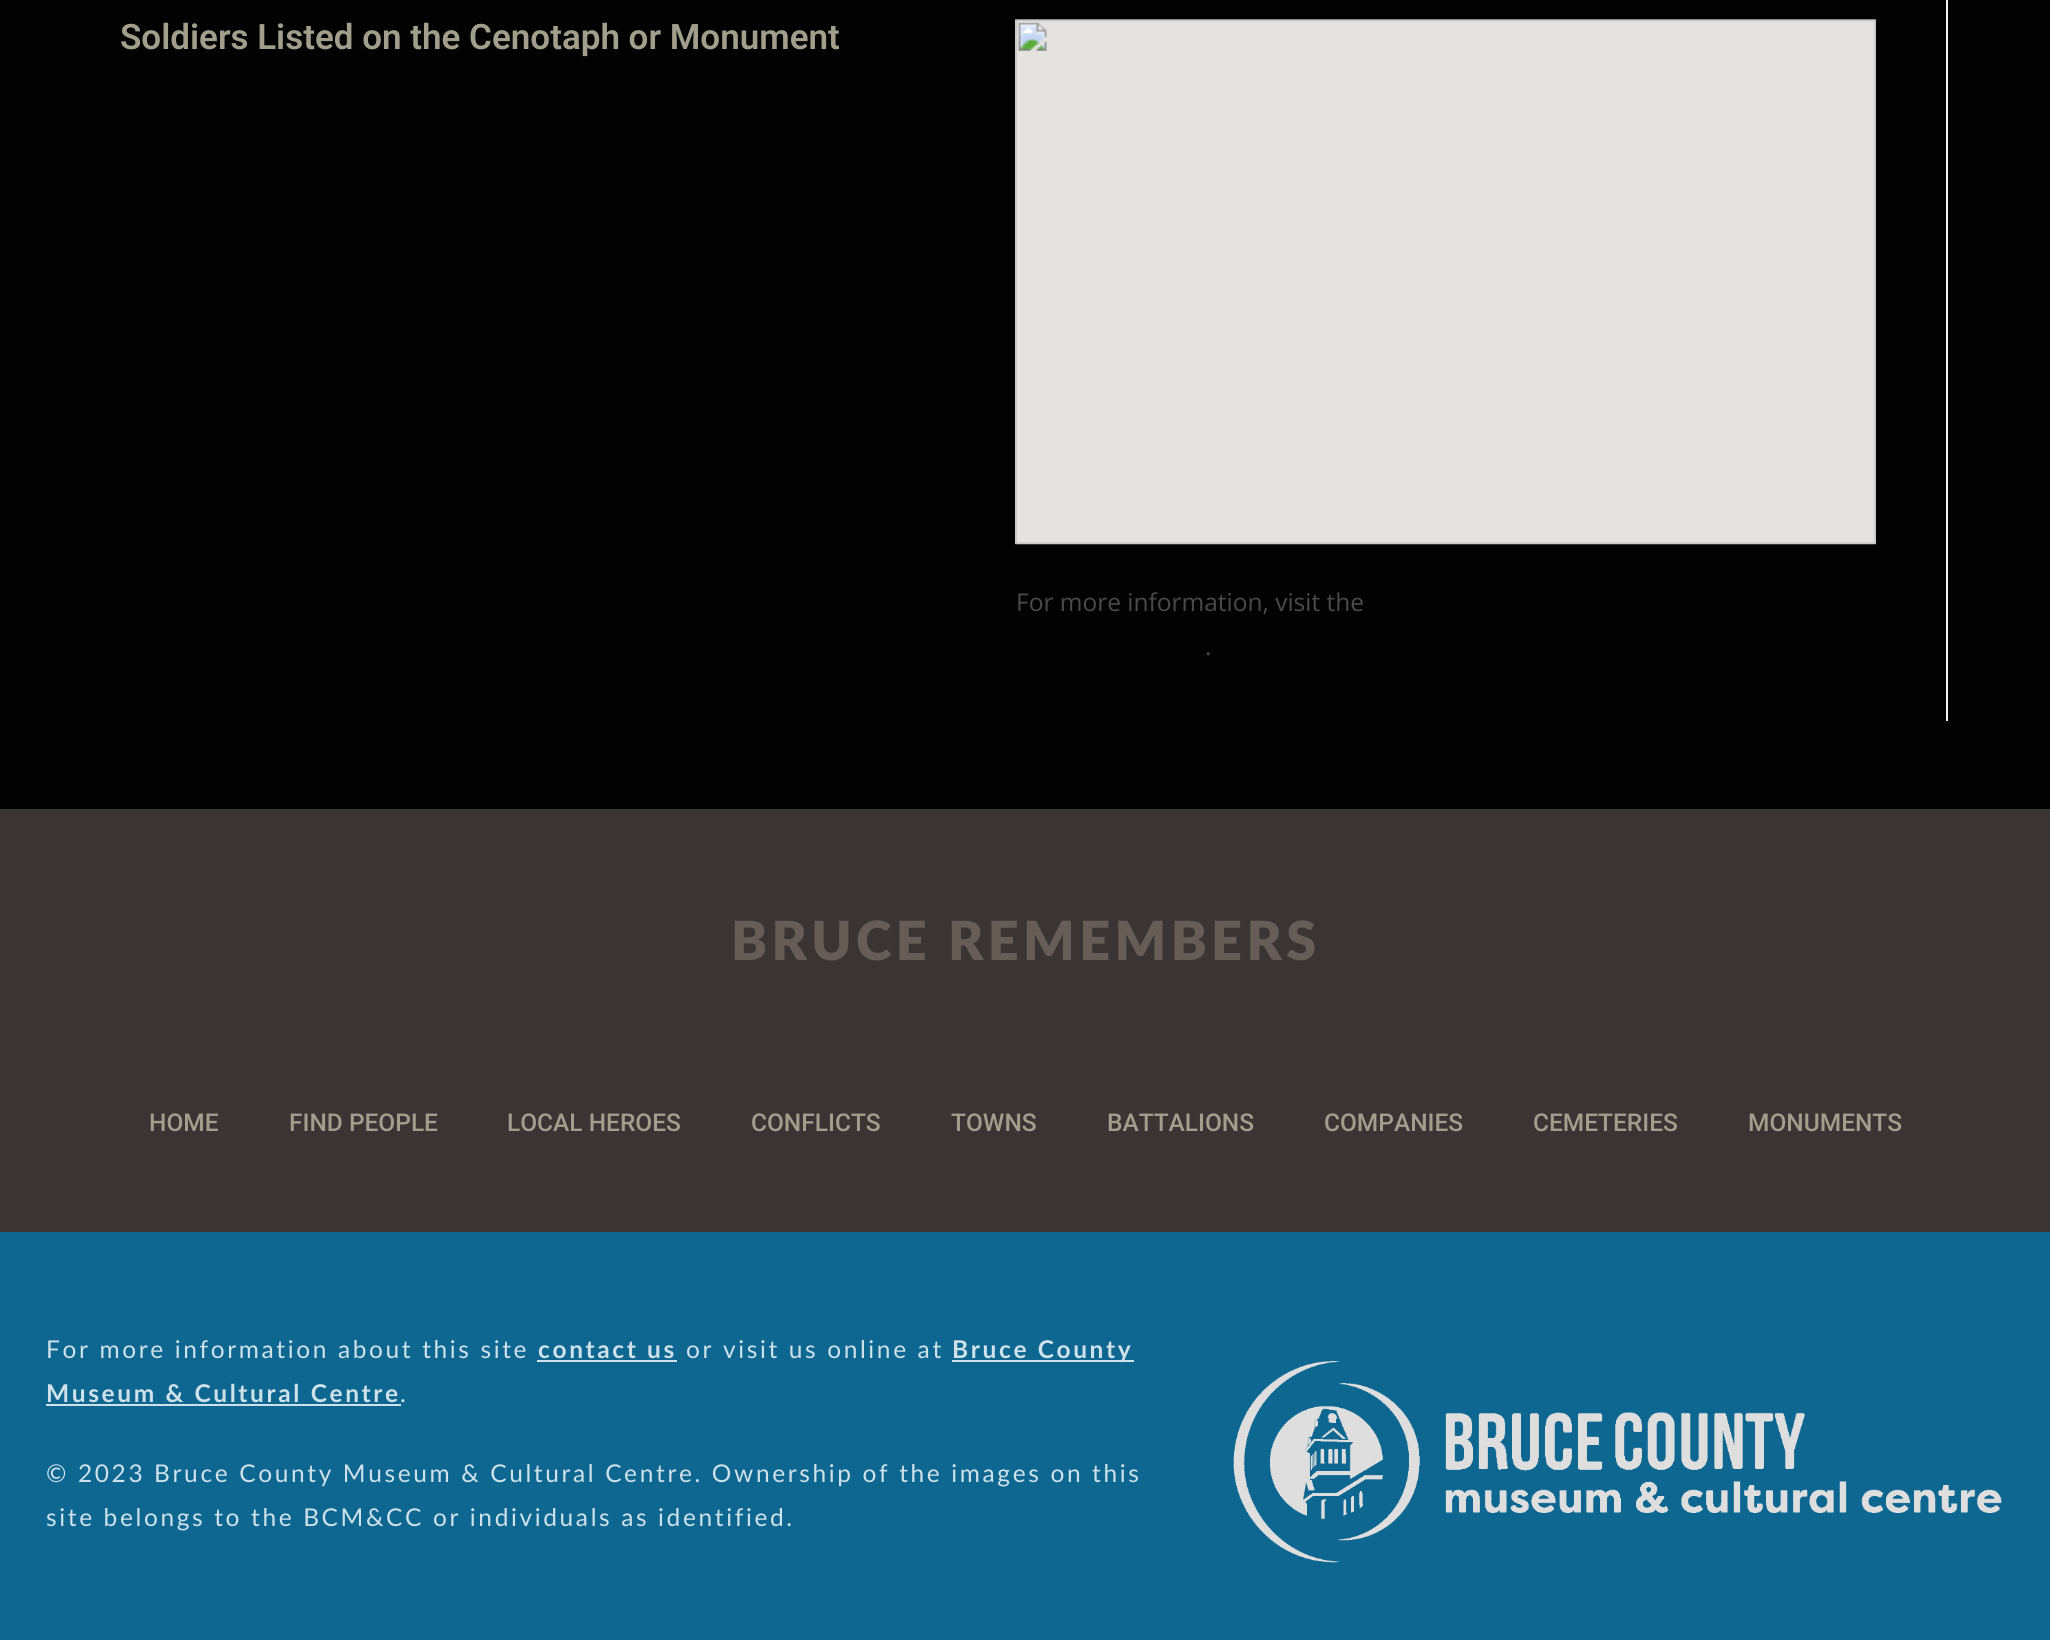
#include <cairo.h>
#include <math.h>
#include <stddef.h>


static void rgb(cairo_t *cr, int r, int g, int b)
{
	cairo_set_source_rgb(cr, r / 255.0, g / 255.0, b / 255.0);
}

static void face(cairo_t *cr, const char *family, double size, int italic, int bold)
{
	cairo_select_font_face(cr, family, italic ? CAIRO_FONT_SLANT_ITALIC : CAIRO_FONT_SLANT_NORMAL,
		bold ? CAIRO_FONT_WEIGHT_BOLD : CAIRO_FONT_WEIGHT_NORMAL);
	cairo_set_font_size(cr, size);
}

static void label(cairo_t *cr, double x, double y, const char *s)
{
	cairo_move_to(cr, x, y);
	cairo_show_text(cr, s);
}

static void tracked(cairo_t *cr, double x, double y, const char *s, double letter, double word)
{
	cairo_move_to(cr, x, y);
	while (*s) {
		char ch[5] = {0};
		int n = 0;
		do ch[n++] = *s++; while ((*s & 0xC0) == 0x80);
		cairo_show_text(cr, ch);
		cairo_rel_move_to(cr, letter + word * (*ch == ' '), 0);
	}
}

static void rect(cairo_t *cr, double x, double y, double w, double h)
{
	cairo_rectangle(cr, x, y, w, h);
	cairo_fill(cr);
}

static void image(cairo_t *cr, const char *path, double x, double y, double w, double h)
{
	cairo_surface_t *image = cairo_image_surface_create_from_png(path);
	cairo_save(cr);
	cairo_set_source_surface(cr, image, x, y);
	cairo_rectangle(cr, x, y, w, h);
	cairo_fill(cr);
	cairo_restore(cr);
	cairo_surface_destroy(image);
}

static void draw(cairo_t *cr) {
	rgb(cr, 2, 2, 2);
	cairo_paint(cr);
	rgb(cr, 241, 241, 241);
	rect(cr, 1946, 0, 2, 721);
	face(cr, "Roboto SemiBold", 35, 0, 0);
	rgb(cr, 161, 159, 140);
	label(cr, 120, 49, "Soldiers Listed on the Cenotaph or Monument");
	image(cr, "image0.png", 1015, 19, 861, 526);
	face(cr, "Open Sans", 24.5, 0, 0);
	rgb(cr, 74, 74, 74);
	label(cr, 1016, 611, "For more information, visit the");
	label(cr, 1205, 655, ".");
	rgb(cr, 58, 52, 53);
	rect(cr, 0, 809, 2050, 423);
	face(cr, "Lato ExtraBold", 53.9, 0, 0);
	rgb(cr, 102, 94, 86);
	tracked(cr, 731, 960, "BRUCE REMEMBERS", 4.4, 0);
	face(cr, "Roboto Medium", 24.5, 0, 0);
	rgb(cr, 161, 159, 140);
	label(cr, 149, 1131, "HOME");
	label(cr, 289, 1131, "FIND PEOPLE");
	label(cr, 507, 1131, "LOCAL HEROES");
	label(cr, 751, 1131, "CONFLICTS");
	label(cr, 951, 1131, "TOWNS");
	label(cr, 1107, 1131, "BATTALIONS");
	label(cr, 1324, 1131, "COMPANIES");
	label(cr, 1533, 1131, "CEMETERIES");
	label(cr, 1748, 1131, "MONUMENTS");
	rgb(cr, 13, 103, 145);
	rect(cr, 0, 1232, 2050, 408);
	face(cr, "Lato", 24.5, 0, 0);
	rgb(cr, 207, 225, 233);
	tracked(cr, 46, 1358, "For more information about this site", 2.62, 0);
	face(cr, "Lato", 24.5, 0, 1);
	tracked(cr, 538, 1358, "contact us", 2.62, 0);
	rect(cr, 537, 1360, 140, 2);
	face(cr, "Lato", 24.5, 0, 0);
	tracked(cr, 686, 1358, "or visit us online at", 2.62, 0);
	rect(cr, 952, 1360, 182, 2);
	face(cr, "Lato", 24.5, 0, 1);
	tracked(cr, 952, 1358, "Bruce County", 2.62, 0);
	tracked(cr, 46, 1402, "Museum & Cultural Centre", 2.62, 0);
	rect(cr, 46, 1404, 355, 2);
	face(cr, "Lato", 24.5, 0, 0);
	tracked(cr, 400, 1402, ".", 2.62, 0);
	tracked(cr, 46, 1482, "© 2023 Bruce County Museum & Cultural Centre. Ownership of the images on this", 2.62, 0);
	tracked(cr, 46, 1526, "site belongs to the BCM&CC or individuals as identified.", 2.62, 0);
	image(cr, "image1.png", 1233, 1361, 769, 202);
}

int main(void) {
	cairo_surface_t *surface = cairo_image_surface_create(CAIRO_FORMAT_RGB24, 2050, 1640);
	cairo_t *cr = cairo_create(surface);
	cairo_font_options_t *options = cairo_font_options_create();
	cairo_font_options_set_hint_metrics(options, CAIRO_HINT_METRICS_OFF);
	cairo_font_options_set_hint_style(options, CAIRO_HINT_STYLE_NONE);
	cairo_set_font_options(cr, options);
	cairo_set_miter_limit(cr, 4);
	draw(cr);
	cairo_surface_write_to_png(surface, "render.png");
	cairo_font_options_destroy(options);
	cairo_destroy(cr);
	cairo_surface_destroy(surface);
	return 0;
}
